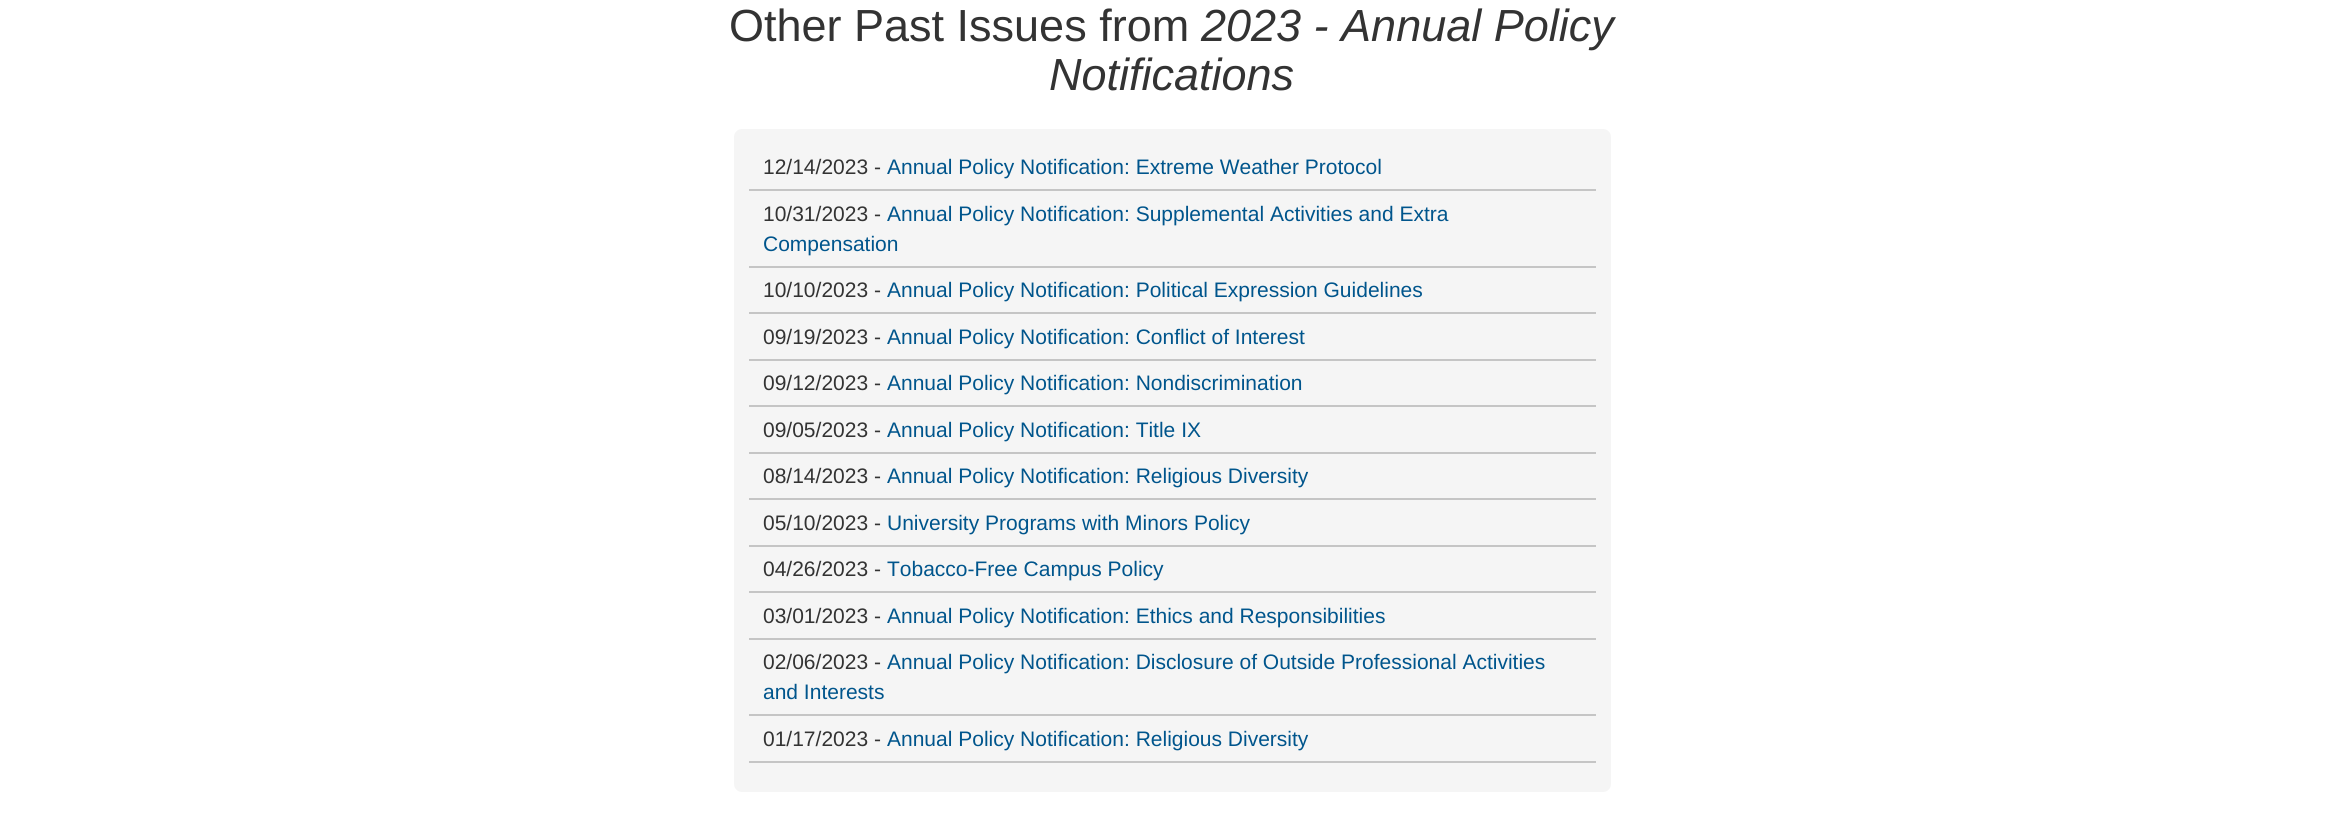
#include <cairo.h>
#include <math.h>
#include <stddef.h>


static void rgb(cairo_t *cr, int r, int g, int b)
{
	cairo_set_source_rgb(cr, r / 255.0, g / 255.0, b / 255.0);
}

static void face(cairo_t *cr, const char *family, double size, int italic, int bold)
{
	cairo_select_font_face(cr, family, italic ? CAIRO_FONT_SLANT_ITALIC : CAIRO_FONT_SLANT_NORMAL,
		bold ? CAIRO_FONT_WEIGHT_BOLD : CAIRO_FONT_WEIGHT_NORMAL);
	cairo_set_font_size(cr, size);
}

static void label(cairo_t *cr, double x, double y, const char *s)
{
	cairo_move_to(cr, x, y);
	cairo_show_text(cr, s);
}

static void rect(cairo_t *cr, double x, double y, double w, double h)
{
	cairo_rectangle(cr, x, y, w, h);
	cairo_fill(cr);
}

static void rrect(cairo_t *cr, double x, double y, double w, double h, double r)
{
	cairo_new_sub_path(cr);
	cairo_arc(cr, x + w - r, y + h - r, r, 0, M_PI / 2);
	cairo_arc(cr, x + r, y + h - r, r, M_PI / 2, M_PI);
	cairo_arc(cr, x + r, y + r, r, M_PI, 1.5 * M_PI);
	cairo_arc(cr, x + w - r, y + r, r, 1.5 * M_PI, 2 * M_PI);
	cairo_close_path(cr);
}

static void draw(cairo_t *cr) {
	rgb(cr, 255, 255, 255);
	cairo_paint(cr);
	face(cr, "Liberation Sans", 45, 0, 0);
	rgb(cr, 51, 51, 51);
	label(cr, 729, 41, "Other Past Issues from");
	face(cr, "Liberation Sans", 45, 1, 0);
	label(cr, 1201, 41, "2023 - Annual Policy");
	label(cr, 1049, 90, "Notifications");
	rgb(cr, 245, 245, 245);
	rrect(cr, 734, 129, 877, 663, 8);
	cairo_fill(cr);
	rgb(cr, 197, 197, 197);
	rect(cr, 749, 189, 847, 2);
	face(cr, "Liberation Sans", 21, 0, 0);
	rgb(cr, 51, 51, 51);
	label(cr, 763, 174, "12/14/2023 -");
	rgb(cr, 0, 85, 140);
	label(cr, 887, 174, "Annual Policy Notification: Extreme Weather Protocol");
	rgb(cr, 197, 197, 197);
	rect(cr, 749, 266, 847, 2);
	rgb(cr, 51, 51, 51);
	label(cr, 763, 221, "10/31/2023 -");
	rgb(cr, 0, 85, 140);
	label(cr, 887, 221, "Annual Policy Notification: Supplemental Activities and Extra");
	label(cr, 763, 251, "Compensation");
	rgb(cr, 197, 197, 197);
	rect(cr, 749, 312, 847, 2);
	rgb(cr, 51, 51, 51);
	label(cr, 763, 297, "10/10/2023 -");
	rgb(cr, 0, 85, 140);
	label(cr, 887, 297, "Annual Policy Notification: Political Expression Guidelines");
	rgb(cr, 197, 197, 197);
	rect(cr, 749, 359, 847, 2);
	rgb(cr, 51, 51, 51);
	label(cr, 763, 344, "09/19/2023 -");
	rgb(cr, 0, 85, 140);
	label(cr, 887, 344, "Annual Policy Notification: Conflict of Interest");
	rgb(cr, 197, 197, 197);
	rect(cr, 749, 405, 847, 2);
	rgb(cr, 51, 51, 51);
	label(cr, 763, 390, "09/12/2023 -");
	rgb(cr, 0, 85, 140);
	label(cr, 887, 390, "Annual Policy Notification: Nondiscrimination");
	rgb(cr, 197, 197, 197);
	rect(cr, 749, 452, 847, 2);
	rgb(cr, 51, 51, 51);
	label(cr, 763, 437, "09/05/2023 -");
	rgb(cr, 0, 85, 140);
	label(cr, 887, 437, "Annual Policy Notification: Title IX");
	rgb(cr, 197, 197, 197);
	rect(cr, 749, 498, 847, 2);
	rgb(cr, 51, 51, 51);
	label(cr, 763, 483, "08/14/2023 -");
	rgb(cr, 0, 85, 140);
	label(cr, 887, 483, "Annual Policy Notification: Religious Diversity");
	rgb(cr, 197, 197, 197);
	rect(cr, 749, 545, 847, 2);
	rgb(cr, 51, 51, 51);
	label(cr, 763, 530, "05/10/2023 -");
	rgb(cr, 0, 85, 140);
	label(cr, 887, 530, "University Programs with Minors Policy");
	rgb(cr, 197, 197, 197);
	rect(cr, 749, 591, 847, 2);
	rgb(cr, 51, 51, 51);
	label(cr, 763, 576, "04/26/2023 -");
	rgb(cr, 0, 85, 140);
	label(cr, 887, 576, "Tobacco-Free Campus Policy");
	rgb(cr, 197, 197, 197);
	rect(cr, 749, 638, 847, 2);
	rgb(cr, 51, 51, 51);
	label(cr, 763, 623, "03/01/2023 -");
	rgb(cr, 0, 85, 140);
	label(cr, 887, 623, "Annual Policy Notification: Ethics and Responsibilities");
	rgb(cr, 197, 197, 197);
	rect(cr, 749, 714, 847, 2);
	rgb(cr, 51, 51, 51);
	label(cr, 763, 669, "02/06/2023 -");
	rgb(cr, 0, 85, 140);
	label(cr, 887, 669, "Annual Policy Notification: Disclosure of Outside Professional Activities");
	label(cr, 763, 699, "and Interests");
	rgb(cr, 197, 197, 197);
	rect(cr, 749, 761, 847, 2);
	rgb(cr, 51, 51, 51);
	label(cr, 763, 746, "01/17/2023 -");
	rgb(cr, 0, 85, 140);
	label(cr, 887, 746, "Annual Policy Notification: Religious Diversity");
}

int main(void) {
	cairo_surface_t *surface = cairo_image_surface_create(CAIRO_FORMAT_RGB24, 2343, 824);
	cairo_t *cr = cairo_create(surface);
	cairo_font_options_t *options = cairo_font_options_create();
	cairo_font_options_set_hint_metrics(options, CAIRO_HINT_METRICS_OFF);
	cairo_font_options_set_hint_style(options, CAIRO_HINT_STYLE_NONE);
	cairo_set_font_options(cr, options);
	cairo_set_miter_limit(cr, 4);
	draw(cr);
	cairo_surface_write_to_png(surface, "render.png");
	cairo_font_options_destroy(options);
	cairo_destroy(cr);
	cairo_surface_destroy(surface);
	return 0;
}
